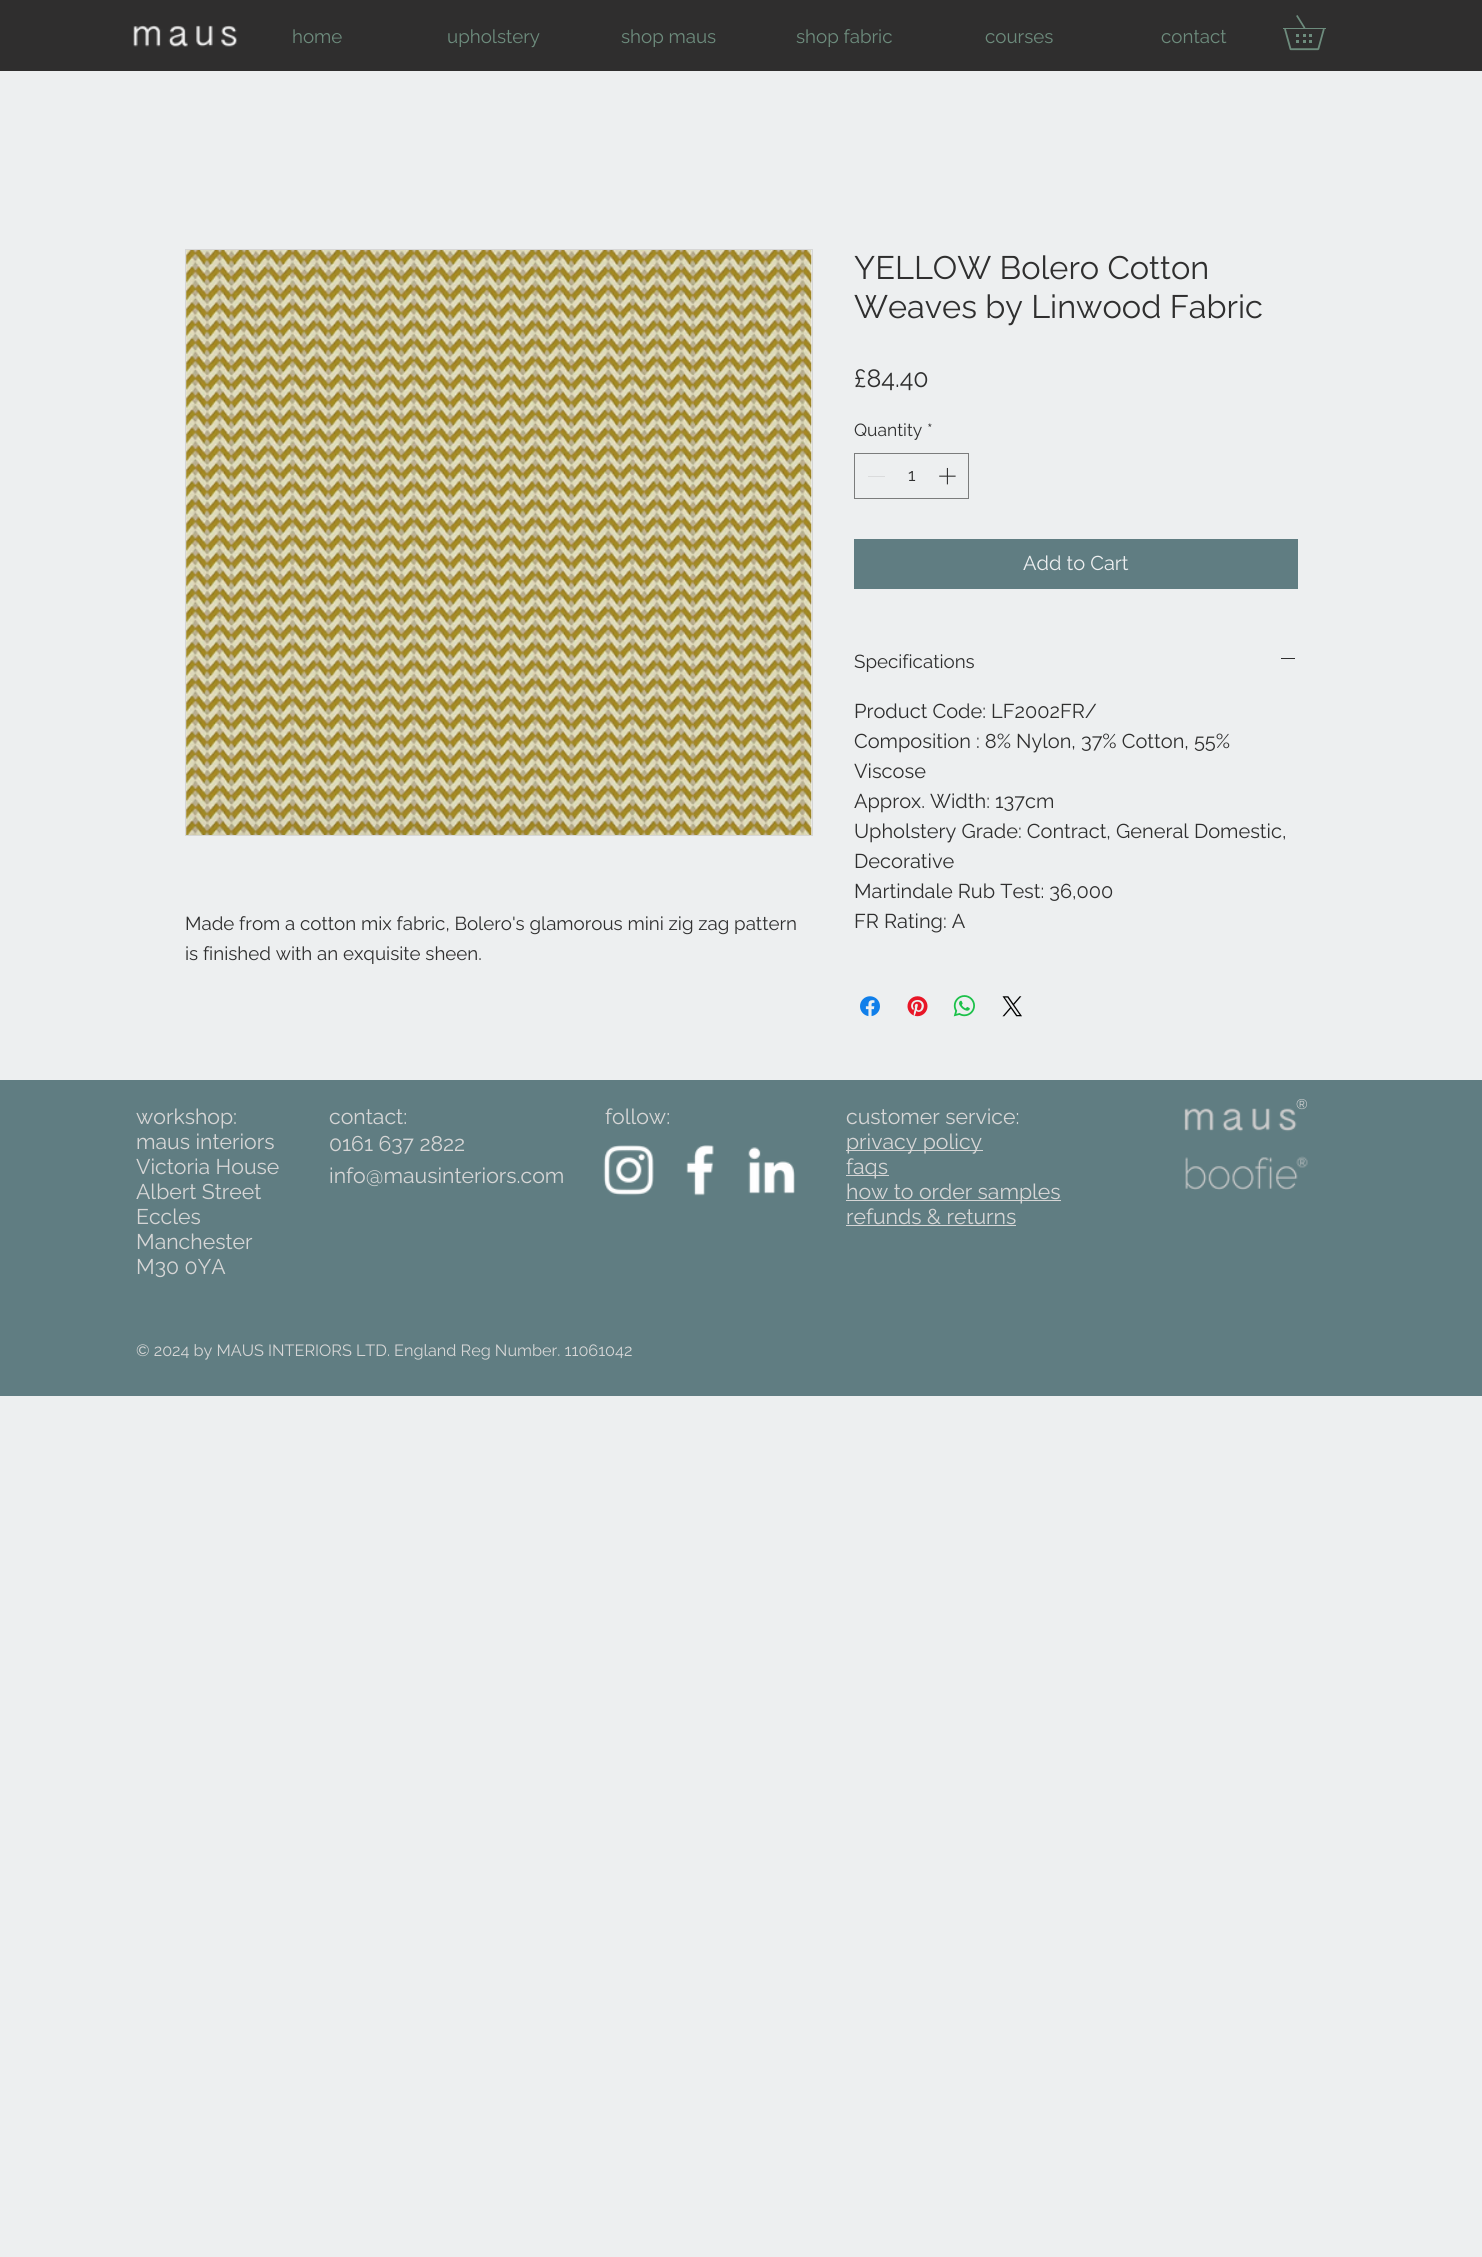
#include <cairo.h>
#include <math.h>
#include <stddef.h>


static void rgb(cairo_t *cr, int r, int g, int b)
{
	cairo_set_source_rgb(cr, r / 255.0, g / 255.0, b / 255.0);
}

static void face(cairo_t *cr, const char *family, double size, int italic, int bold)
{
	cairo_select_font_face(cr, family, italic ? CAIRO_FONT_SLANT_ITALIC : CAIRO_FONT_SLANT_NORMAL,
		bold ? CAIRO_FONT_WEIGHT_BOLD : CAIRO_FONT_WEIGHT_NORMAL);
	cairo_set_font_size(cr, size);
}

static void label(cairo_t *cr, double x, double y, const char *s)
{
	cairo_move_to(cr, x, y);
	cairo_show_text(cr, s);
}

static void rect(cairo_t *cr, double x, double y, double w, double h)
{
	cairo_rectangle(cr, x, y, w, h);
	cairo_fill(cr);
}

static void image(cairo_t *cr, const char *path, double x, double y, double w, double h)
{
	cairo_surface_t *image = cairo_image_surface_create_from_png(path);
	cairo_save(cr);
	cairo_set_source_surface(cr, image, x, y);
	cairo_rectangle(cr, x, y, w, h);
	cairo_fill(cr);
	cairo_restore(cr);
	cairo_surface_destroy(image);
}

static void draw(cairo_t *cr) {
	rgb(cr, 237, 239, 240);
	cairo_paint(cr);
	rgb(cr, 47, 46, 46);
	rect(cr, 0, 0, 1482, 71);
	image(cr, "image0.png", 133, 25, 105, 22);
	face(cr, "Raleway", 18.75, 0, 0);
	rgb(cr, 109, 140, 125);
	label(cr, 292, 43, "home");
	label(cr, 447, 43, "upholstery");
	label(cr, 621, 43, "shop maus");
	label(cr, 796, 43, "shop fabric");
	label(cr, 985, 43, "courses");
	label(cr, 1161, 43, "contact");
	image(cr, "image1.png", 1283, 15, 43, 36);
	face(cr, "Raleway", 32.5, 0, 0);
	rgb(cr, 47, 47, 47);
	label(cr, 854, 279, "YELLOW Bolero Cotton");
	label(cr, 854, 318, "Weaves by Linwood Fabric");
	face(cr, "Raleway", 25, 0, 0);
	label(cr, 854, 387, "£84.40");
	face(cr, "Raleway", 17.5, 0, 0);
	label(cr, 854, 436, "Quantity");
	label(cr, 927, 436, "*");
	cairo_rectangle(cr, 854.5, 453.5, 114, 45);
	rgb(cr, 123, 124, 124);
	cairo_set_line_width(cr, 1);
	cairo_stroke(cr);
	rgb(cr, 218, 219, 220);
	rect(cr, 868, 476, 17, 1);
	rgb(cr, 47, 47, 47);
	label(cr, 908, 481, "1");
	image(cr, "image2.png", 939, 467, 17, 18);
	rgb(cr, 96, 125, 130);
	rect(cr, 854, 539, 444, 50);
	face(cr, "Raleway", 20, 0, 0);
	rgb(cr, 237, 239, 240);
	label(cr, 1023, 570, "Add to Cart");
	face(cr, "Raleway", 18.75, 0, 0);
	rgb(cr, 47, 47, 47);
	label(cr, 854, 668, "Specifications");
	rect(cr, 1281, 658, 14, 1);
	face(cr, "Raleway", 20, 0, 0);
	label(cr, 854, 718, "Product Code: LF2002FR/");
	label(cr, 854, 748, "Composition : 8% Nylon, 37% Cotton, 55%");
	label(cr, 854, 778, "Viscose");
	label(cr, 854, 808, "Approx. Width: 137cm");
	label(cr, 854, 838, "Upholstery Grade: Contract, General Domestic,");
	label(cr, 854, 868, "Decorative");
	label(cr, 854, 898, "Martindale Rub Test: 36,000");
	label(cr, 854, 928, "FR Rating: A");
	image(cr, "image3.png", 860, 996, 20, 21);
	image(cr, "image4.png", 907, 996, 21, 21);
	image(cr, "image5.png", 953, 995, 22, 22);
	image(cr, "image6.png", 1002, 996, 20, 21);
	cairo_rectangle(cr, 185.5, 249.5, 627, 586);
	rgb(cr, 214, 214, 214);
	cairo_stroke(cr);
	image(cr, "image7.png", 186, 250, 626, 585);
	face(cr, "Raleway", 18.75, 0, 0);
	rgb(cr, 47, 47, 47);
	label(cr, 185, 930, "Made from a cotton mix fabric, Bolero's glamorous mini zig zag pattern");
	label(cr, 185, 960, "is finished with an exquisite sheen.");
	rgb(cr, 96, 125, 130);
	rect(cr, 0, 1080, 1482, 316);
	image(cr, "image8.png", 1184, 1108, 113, 24);
	face(cr, "Raleway", 14, 0, 0);
	rgb(cr, 214, 214, 214);
	label(cr, 1296, 1109, "®");
	face(cr, "Raleway", 21.25, 0, 0);
	label(cr, 136, 1124, "workshop:");
	label(cr, 136, 1149, "maus interiors");
	label(cr, 136, 1174, "Victoria House");
	label(cr, 136, 1199, "Albert Street");
	label(cr, 136, 1224, "Eccles");
	label(cr, 136, 1249, "Manchester");
	label(cr, 136, 1274, "M30 0YA");
	label(cr, 329, 1124, "contact:");
	label(cr, 329, 1151, "0161 637 2822");
	label(cr, 329, 1183, "info@mausinteriors.com");
	label(cr, 605, 1124, "follow:");
	label(cr, 846, 1124, "customer service:");
	rect(cr, 846, 1150, 137, 1);
	label(cr, 846, 1149, "privacy policy");
	rect(cr, 846, 1175, 43, 1);
	label(cr, 846, 1174, "faqs");
	rect(cr, 846, 1200, 215, 1);
	label(cr, 846, 1199, "how to order samples");
	label(cr, 846, 1224, "refunds & returns");
	rect(cr, 846, 1225, 170, 1);
	image(cr, "image9.png", 603, 1145, 51, 51);
	image(cr, "image10.png", 686, 1145, 28, 51);
	image(cr, "image11.png", 748, 1147, 47, 47);
	image(cr, "image12.png", 1185, 1156, 123, 34);
	face(cr, "Raleway", 16.25, 0, 0);
	label(cr, 136, 1356, "© 2024 by MAUS INTERIORS LTD. England Reg Number. 11061042");
}

int main(void) {
	cairo_surface_t *surface = cairo_image_surface_create(CAIRO_FORMAT_RGB24, 1482, 2257);
	cairo_t *cr = cairo_create(surface);
	cairo_font_options_t *options = cairo_font_options_create();
	cairo_font_options_set_hint_metrics(options, CAIRO_HINT_METRICS_OFF);
	cairo_font_options_set_hint_style(options, CAIRO_HINT_STYLE_NONE);
	cairo_set_font_options(cr, options);
	cairo_set_miter_limit(cr, 4);
	draw(cr);
	cairo_surface_write_to_png(surface, "render.png");
	cairo_font_options_destroy(options);
	cairo_destroy(cr);
	cairo_surface_destroy(surface);
	return 0;
}
